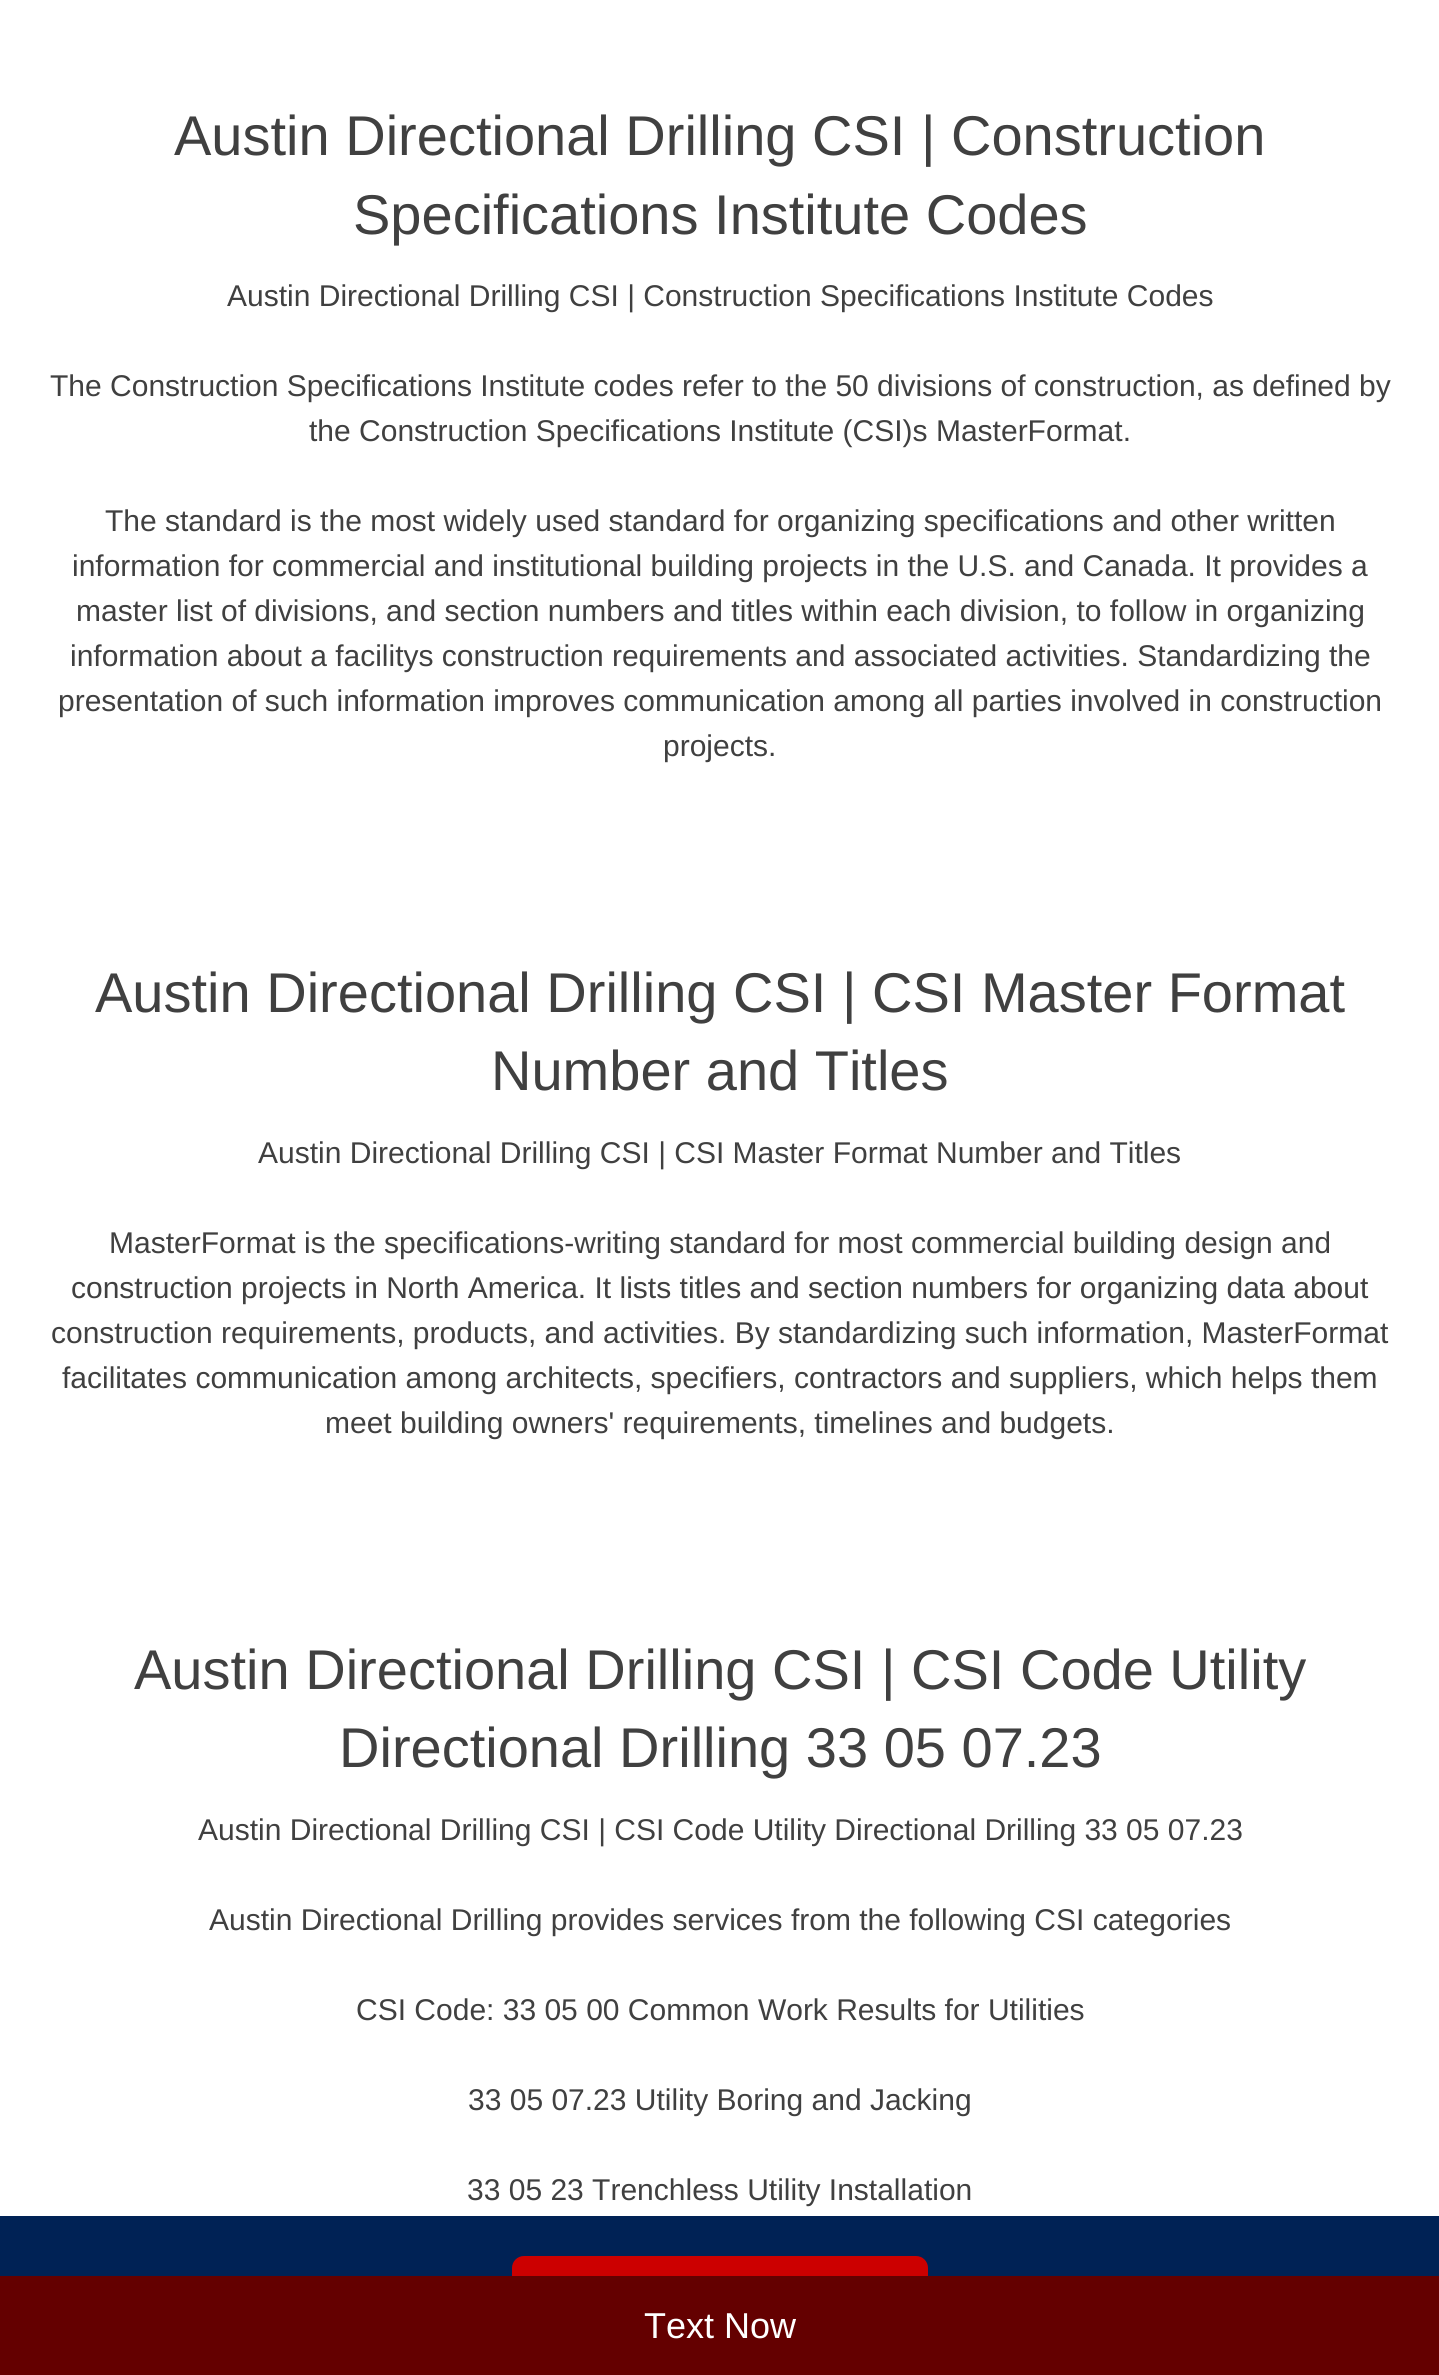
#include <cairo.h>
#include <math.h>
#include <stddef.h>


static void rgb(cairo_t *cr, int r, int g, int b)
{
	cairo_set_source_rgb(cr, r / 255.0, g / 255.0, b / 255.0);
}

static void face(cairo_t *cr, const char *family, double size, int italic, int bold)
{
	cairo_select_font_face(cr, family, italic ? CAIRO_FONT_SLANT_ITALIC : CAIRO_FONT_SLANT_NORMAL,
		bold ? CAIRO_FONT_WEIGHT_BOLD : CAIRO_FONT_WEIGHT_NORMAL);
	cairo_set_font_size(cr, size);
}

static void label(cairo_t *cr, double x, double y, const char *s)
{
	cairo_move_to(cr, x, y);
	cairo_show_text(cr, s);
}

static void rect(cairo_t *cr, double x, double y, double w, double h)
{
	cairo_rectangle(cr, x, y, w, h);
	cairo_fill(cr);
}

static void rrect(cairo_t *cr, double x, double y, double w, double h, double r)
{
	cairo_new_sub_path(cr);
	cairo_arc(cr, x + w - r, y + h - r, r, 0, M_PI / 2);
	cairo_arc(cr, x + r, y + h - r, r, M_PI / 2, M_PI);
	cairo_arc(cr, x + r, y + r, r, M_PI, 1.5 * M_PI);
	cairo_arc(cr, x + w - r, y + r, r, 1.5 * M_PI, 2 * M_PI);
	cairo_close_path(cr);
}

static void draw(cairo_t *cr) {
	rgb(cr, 255, 255, 255);
	cairo_paint(cr);
	face(cr, "Liberation Sans", 56, 0, 0);
	rgb(cr, 64, 64, 64);
	label(cr, 174, 155, "Austin Directional Drilling CSI | Construction");
	label(cr, 353, 234, "Specifications Institute Codes");
	face(cr, "Liberation Sans", 30, 0, 0);
	label(cr, 227, 306, "Austin Directional Drilling CSI | Construction Specifications Institute Codes");
	label(cr, 50, 396, "The Construction Specifications Institute codes refer to the 50 divisions of construction, as defined by");
	label(cr, 309, 441, "the Construction Specifications Institute (CSI)s MasterFormat.");
	label(cr, 105, 531, "The standard is the most widely used standard for organizing specifications and other written");
	label(cr, 72, 576, "information for commercial and institutional building projects in the U.S. and Canada. It provides a");
	label(cr, 76, 621, "master list of divisions, and section numbers and titles within each division, to follow in organizing");
	label(cr, 70, 666, "information about a facilitys construction requirements and associated activities. Standardizing the");
	label(cr, 58, 711, "presentation of such information improves communication among all parties involved in construction");
	label(cr, 663, 756, "projects.");
	face(cr, "Liberation Sans", 56, 0, 0);
	label(cr, 95, 1012, "Austin Directional Drilling CSI | CSI Master Format");
	label(cr, 491, 1090, "Number and Titles");
	face(cr, "Liberation Sans", 30, 0, 0);
	label(cr, 258, 1163, "Austin Directional Drilling CSI | CSI Master Format Number and Titles");
	label(cr, 109, 1253, "MasterFormat is the specifications-writing standard for most commercial building design and");
	label(cr, 71, 1298, "construction projects in North America. It lists titles and section numbers for organizing data about");
	label(cr, 51, 1343, "construction requirements, products, and activities. By standardizing such information, MasterFormat");
	label(cr, 62, 1388, "facilitates communication among architects, specifiers, contractors and suppliers, which helps them");
	label(cr, 325, 1433, "meet building owners' requirements, timelines and budgets.");
	face(cr, "Liberation Sans", 56, 0, 0);
	label(cr, 134, 1689, "Austin Directional Drilling CSI | CSI Code Utility");
	label(cr, 339, 1767, "Directional Drilling 33 05 07.23");
	face(cr, "Liberation Sans", 30, 0, 0);
	label(cr, 198, 1840, "Austin Directional Drilling CSI | CSI Code Utility Directional Drilling 33 05 07.23");
	label(cr, 209, 1930, "Austin Directional Drilling provides services from the following CSI categories");
	label(cr, 356, 2020, "CSI Code: 33 05 00 Common Work Results for Utilities");
	label(cr, 468, 2110, "33 05 07.23 Utility Boring and Jacking");
	label(cr, 467, 2200, "33 05 23 Trenchless Utility Installation");
	rgb(cr, 0, 34, 85);
	rect(cr, 0, 2216, 1439, 60);
	rgb(cr, 204, 0, 0);
	rrect(cr, 513, 2257, 414, 90, 11);
	cairo_fill_preserve(cr);
	cairo_stroke(cr);
	rgb(cr, 100, 0, 0);
	rect(cr, 0, 2276, 1439, 99);
	face(cr, "Liberation Sans", 36, 0, 0);
	rgb(cr, 255, 255, 255);
	label(cr, 644, 2338, "Text Now");
}

int main(void) {
	cairo_surface_t *surface = cairo_image_surface_create(CAIRO_FORMAT_RGB24, 1439, 2375);
	cairo_t *cr = cairo_create(surface);
	cairo_font_options_t *options = cairo_font_options_create();
	cairo_font_options_set_hint_metrics(options, CAIRO_HINT_METRICS_OFF);
	cairo_font_options_set_hint_style(options, CAIRO_HINT_STYLE_NONE);
	cairo_set_font_options(cr, options);
	cairo_set_miter_limit(cr, 4);
	draw(cr);
	cairo_surface_write_to_png(surface, "render.png");
	cairo_font_options_destroy(options);
	cairo_destroy(cr);
	cairo_surface_destroy(surface);
	return 0;
}
